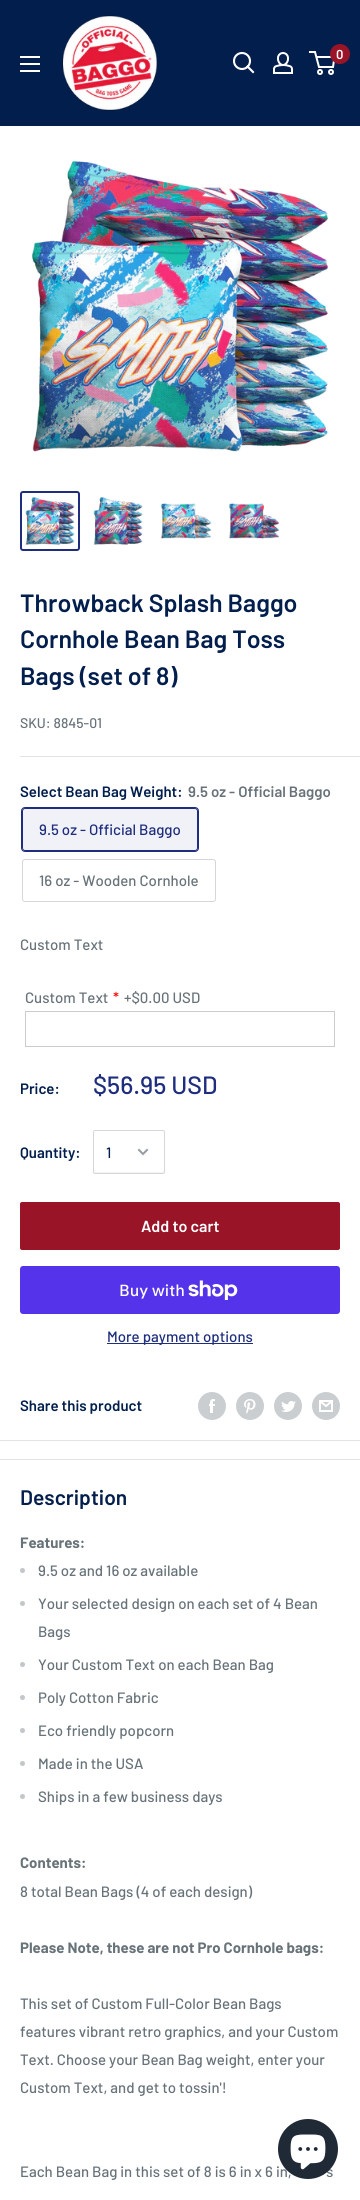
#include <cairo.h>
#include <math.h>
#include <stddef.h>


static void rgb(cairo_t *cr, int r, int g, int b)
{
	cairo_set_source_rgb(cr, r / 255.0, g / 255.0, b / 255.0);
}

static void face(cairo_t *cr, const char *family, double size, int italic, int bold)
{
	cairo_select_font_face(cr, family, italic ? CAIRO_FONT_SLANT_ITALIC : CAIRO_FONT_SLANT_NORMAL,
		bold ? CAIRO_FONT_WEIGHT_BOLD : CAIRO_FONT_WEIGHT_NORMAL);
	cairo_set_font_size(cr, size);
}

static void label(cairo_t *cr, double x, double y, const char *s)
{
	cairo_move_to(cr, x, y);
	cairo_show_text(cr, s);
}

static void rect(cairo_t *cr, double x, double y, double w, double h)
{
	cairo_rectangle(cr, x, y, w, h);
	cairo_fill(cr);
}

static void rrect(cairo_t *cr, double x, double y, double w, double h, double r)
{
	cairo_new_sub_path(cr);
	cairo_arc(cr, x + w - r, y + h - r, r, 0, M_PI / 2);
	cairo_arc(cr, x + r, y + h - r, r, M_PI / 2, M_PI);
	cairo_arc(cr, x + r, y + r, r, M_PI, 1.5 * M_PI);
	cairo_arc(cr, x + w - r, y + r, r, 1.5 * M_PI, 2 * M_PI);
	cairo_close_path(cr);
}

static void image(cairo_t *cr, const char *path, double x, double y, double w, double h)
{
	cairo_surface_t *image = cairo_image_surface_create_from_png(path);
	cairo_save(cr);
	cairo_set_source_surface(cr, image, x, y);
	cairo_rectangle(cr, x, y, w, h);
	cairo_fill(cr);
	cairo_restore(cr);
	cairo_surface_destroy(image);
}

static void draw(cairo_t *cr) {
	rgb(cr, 255, 255, 255);
	cairo_paint(cr);
	rgb(cr, 2, 30, 76);
	rect(cr, 0, 0, 360, 126);
	image(cr, "image0.png", 62, 15, 96, 96);
	cairo_new_path(cr);
	cairo_move_to(cr, 253, 72);
	cairo_line_to(cr, 247.5, 66.5);
	rgb(cr, 255, 255, 255);
	cairo_set_line_width(cr, 2.1);
	cairo_set_line_cap(cr, CAIRO_LINE_CAP_SQUARE);
	cairo_stroke(cr);
	cairo_arc(cr, 242, 61, 8, 0, 2 * M_PI);
	cairo_set_line_cap(cr, CAIRO_LINE_CAP_BUTT);
	cairo_stroke(cr);
	image(cr, "image1.png", 273, 52, 20, 22);
	cairo_arc(cr, 320, 72, 2, 0, 2 * M_PI);
	cairo_set_line_width(cr, 2);
	cairo_stroke(cr);
	cairo_arc(cr, 331, 72, 2, 0, 2 * M_PI);
	cairo_stroke(cr);
	cairo_new_path(cr);
	cairo_move_to(cr, 316.5, 57);
	cairo_line_to(cr, 334.5, 57);
	cairo_line_to(cr, 333, 67);
	cairo_line_to(cr, 319, 67);
	cairo_line_to(cr, 315, 52);
	cairo_line_to(cr, 309, 52);
	cairo_stroke(cr);
	rgb(cr, 154, 20, 40);
	cairo_arc(cr, 340, 54, 10, 0, 2 * M_PI);
	cairo_fill(cr);
	face(cr, "Barlow SemiBold", 13, 0, 0);
	rgb(cr, 255, 255, 255);
	label(cr, 336, 59, "0");
	image(cr, "image2.png", 20, 56, 20, 16);
	image(cr, "image3.png", 32, 160, 296, 292);
	rrect(cr, 21, 492, 58, 58, 2);
	rgb(cr, 30, 45, 125);
	cairo_stroke(cr);
	image(cr, "image4.png", 25, 497, 50, 48);
	image(cr, "image5.png", 93, 497, 50, 48);
	image(cr, "image6.png", 160, 503, 52, 36);
	image(cr, "image7.png", 228, 503, 52, 36);
	rgb(cr, 225, 227, 228);
	rect(cr, 0, 1440, 360, 1);
	face(cr, "Barlow SemiBold", 25, 0, 0);
	rgb(cr, 2, 30, 76);
	label(cr, 20, 612, "Throwback Splash Baggo");
	label(cr, 20, 648, "Cornhole Bean Bag Toss");
	label(cr, 20, 685, "Bags (set of 8)");
	face(cr, "Barlow Medium", 14, 0, 0);
	rgb(cr, 103, 114, 121);
	label(cr, 20, 728, "SKU: 8845-01");
	rgb(cr, 225, 227, 228);
	rect(cr, 20, 756, 340, 1);
	face(cr, "Barlow SemiBold", 15, 0, 0);
	rgb(cr, 2, 30, 76);
	label(cr, 20, 797, "Select Bean Bag Weight:");
	rgb(cr, 103, 114, 121);
	label(cr, 188, 797, "9.5 oz - Official Baggo");
	rrect(cr, 21.5, 807.5, 177, 44, 3.5);
	rgb(cr, 30, 45, 125);
	cairo_set_line_width(cr, 1);
	cairo_stroke(cr);
	cairo_set_source_rgba(cr, 0.118, 0.176, 0.49, 0.06);
	rect(cr, 22, 808, 176, 43);
	rrect(cr, 22.5, 808.5, 175, 42, 2.5);
	rgb(cr, 30, 45, 125);
	cairo_stroke(cr);
	face(cr, "Barlow Medium", 15, 0, 0);
	label(cr, 39, 835, "9.5 oz - Official Baggo");
	rrect(cr, 22.5, 859.5, 193, 42, 2.5);
	rgb(cr, 212, 214, 216);
	cairo_stroke(cr);
	rgb(cr, 103, 114, 121);
	label(cr, 39, 886, "16 oz - Wooden Cornhole");
	label(cr, 20, 950, "Custom Text");
	label(cr, 25, 1003, "Custom Text");
	rgb(cr, 255, 0, 0);
	label(cr, 113, 1003, "*");
	rgb(cr, 103, 114, 121);
	label(cr, 124, 1003, "+$0.00 USD");
	cairo_rectangle(cr, 25.5, 1011.5, 309, 35);
	rgb(cr, 204, 204, 204);
	cairo_stroke(cr);
	face(cr, "Barlow SemiBold", 15, 0, 0);
	rgb(cr, 2, 30, 76);
	label(cr, 20, 1094, "Price:");
	face(cr, "Barlow Medium", 25, 0, 0);
	rgb(cr, 30, 45, 125);
	label(cr, 93, 1094, "$56.95 USD");
	face(cr, "Barlow SemiBold", 15, 0, 0);
	rgb(cr, 2, 30, 76);
	label(cr, 20, 1158, "Quantity:");
	rgb(cr, 242, 243, 243);
	cairo_new_path(cr);
	cairo_move_to(cr, 94, 1171);
	cairo_curve_to(cr, 94, 1172, 94, 1173, 95, 1173);
	cairo_line_to(cr, 152, 1173);
	cairo_curve_to(cr, 155, 1173, 164, 1176, 164, 1171);
	cairo_line_to(cr, 163, 1172);
	cairo_line_to(cr, 99, 1172);
	cairo_curve_to(cr, 98, 1172, 95, 1173, 94, 1171);
	cairo_close_path(cr);
	cairo_fill(cr);
	rrect(cr, 93.5, 1130.5, 71, 43, 1.5);
	rgb(cr, 212, 214, 216);
	cairo_stroke(cr);
	face(cr, "Barlow Medium", 15, 0, 0);
	rgb(cr, 2, 30, 76);
	label(cr, 106, 1158, "1");
	cairo_new_path(cr);
	cairo_move_to(cr, 147, 1150);
	cairo_line_to(cr, 143, 1154);
	cairo_line_to(cr, 139, 1150);
	rgb(cr, 149, 156, 161);
	cairo_set_line_width(cr, 2);
	cairo_set_line_cap(cr, CAIRO_LINE_CAP_SQUARE);
	cairo_stroke(cr);
	rgb(cr, 154, 20, 40);
	rrect(cr, 20, 1202, 320, 48, 2);
	cairo_fill(cr);
	face(cr, "Barlow SemiBold", 16, 0, 0);
	rgb(cr, 255, 255, 255);
	label(cr, 141, 1232, "Add to cart");
	rgb(cr, 84, 51, 235);
	rrect(cr, 20, 1266, 320, 48, 3);
	cairo_fill(cr);
	face(cr, "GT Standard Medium", 16, 0, 0);
	rgb(cr, 255, 255, 255);
	label(cr, 119, 1296, "Buy with");
	image(cr, "image8.png", 188, 1280, 50, 20);
	rgb(cr, 30, 45, 125);
	rect(cr, 107, 1343, 146, 1);
	face(cr, "Barlow Medium", 15, 0, 0);
	label(cr, 107, 1342, "More payment options");
	face(cr, "Barlow SemiBold", 15, 0, 0);
	rgb(cr, 2, 30, 76);
	label(cr, 20, 1411, "Share this product");
	image(cr, "image9.png", 198, 1392, 28, 28);
	image(cr, "image10.png", 236, 1392, 28, 28);
	image(cr, "image11.png", 274, 1392, 28, 28);
	image(cr, "image12.png", 312, 1392, 28, 28);
	rgb(cr, 225, 227, 228);
	rect(cr, 0, 1459, 360, 1);
	face(cr, "Barlow SemiBold", 21, 0, 0);
	rgb(cr, 2, 30, 76);
	label(cr, 20, 1505, "Description");
	face(cr, "Barlow", 15, 0, 1);
	rgb(cr, 103, 114, 121);
	label(cr, 20, 1548, "Features:");
	rgb(cr, 194, 199, 201);
	cairo_new_path(cr);
	cairo_arc(cr, 22.5, 1570.5, 2.5, 0, 2 * M_PI);
	cairo_fill(cr);
	face(cr, "Barlow Medium", 15, 0, 0);
	rgb(cr, 103, 114, 121);
	label(cr, 38, 1576, "9.5 oz and 16 oz available");
	rgb(cr, 194, 199, 201);
	cairo_new_path(cr);
	cairo_arc(cr, 22.5, 1603.5, 2.5, 0, 2 * M_PI);
	cairo_fill(cr);
	rgb(cr, 103, 114, 121);
	label(cr, 38, 1609, "Your selected design on each set of 4 Bean");
	label(cr, 38, 1637, "Bags");
	rgb(cr, 194, 199, 201);
	cairo_new_path(cr);
	cairo_arc(cr, 22.5, 1664.5, 2.5, 0, 2 * M_PI);
	cairo_fill(cr);
	rgb(cr, 103, 114, 121);
	label(cr, 38, 1670, "Your Custom Text on each Bean Bag");
	rgb(cr, 194, 199, 201);
	cairo_new_path(cr);
	cairo_arc(cr, 22.5, 1697.5, 2.5, 0, 2 * M_PI);
	cairo_fill(cr);
	rgb(cr, 103, 114, 121);
	label(cr, 38, 1703, "Poly Cotton Fabric");
	rgb(cr, 194, 199, 201);
	cairo_new_path(cr);
	cairo_arc(cr, 22.5, 1730.5, 2.5, 0, 2 * M_PI);
	cairo_fill(cr);
	rgb(cr, 103, 114, 121);
	label(cr, 38, 1736, "Eco friendly popcorn");
	rgb(cr, 194, 199, 201);
	cairo_new_path(cr);
	cairo_arc(cr, 22.5, 1763.5, 2.5, 0, 2 * M_PI);
	cairo_fill(cr);
	rgb(cr, 103, 114, 121);
	label(cr, 38, 1769, "Made in the USA");
	rgb(cr, 194, 199, 201);
	cairo_new_path(cr);
	cairo_arc(cr, 22.5, 1796.5, 2.5, 0, 2 * M_PI);
	cairo_fill(cr);
	rgb(cr, 103, 114, 121);
	label(cr, 38, 1802, "Ships in a few business days");
	face(cr, "Barlow", 15, 0, 1);
	label(cr, 20, 1868, "Contents:");
	face(cr, "Barlow Medium", 15, 0, 0);
	label(cr, 20, 1897, "8 total Bean Bags (4 of each design)");
	face(cr, "Barlow", 15, 0, 1);
	label(cr, 20, 1953, "Please Note, these are not Pro Cornhole bags:");
	face(cr, "Barlow Medium", 15, 0, 0);
	label(cr, 20, 2009, "This set of Custom Full-Color Bean Bags");
	label(cr, 20, 2037, "features vibrant retro graphics, and your Custom");
	label(cr, 20, 2065, "Text. Choose your Bean Bag weight, enter your");
	label(cr, 20, 2093, "Custom Text, and get to tossin'!");
	label(cr, 20, 2177, "Each Bean Bag in this set of 8 is 6 in x 6 in,");
	label(cr, 326, 2177, "s");
	rgb(cr, 32, 42, 54);
	cairo_new_path(cr);
	cairo_arc(cr, 308, 2149, 30, 0, 2 * M_PI);
	cairo_fill(cr);
	image(cr, "image13.png", 290, 2134, 36, 36);
}

int main(void) {
	cairo_surface_t *surface = cairo_image_surface_create(CAIRO_FORMAT_RGB24, 360, 2200);
	cairo_t *cr = cairo_create(surface);
	cairo_font_options_t *options = cairo_font_options_create();
	cairo_font_options_set_hint_metrics(options, CAIRO_HINT_METRICS_OFF);
	cairo_font_options_set_hint_style(options, CAIRO_HINT_STYLE_NONE);
	cairo_set_font_options(cr, options);
	cairo_set_miter_limit(cr, 4);
	draw(cr);
	cairo_surface_write_to_png(surface, "render.png");
	cairo_font_options_destroy(options);
	cairo_destroy(cr);
	cairo_surface_destroy(surface);
	return 0;
}
